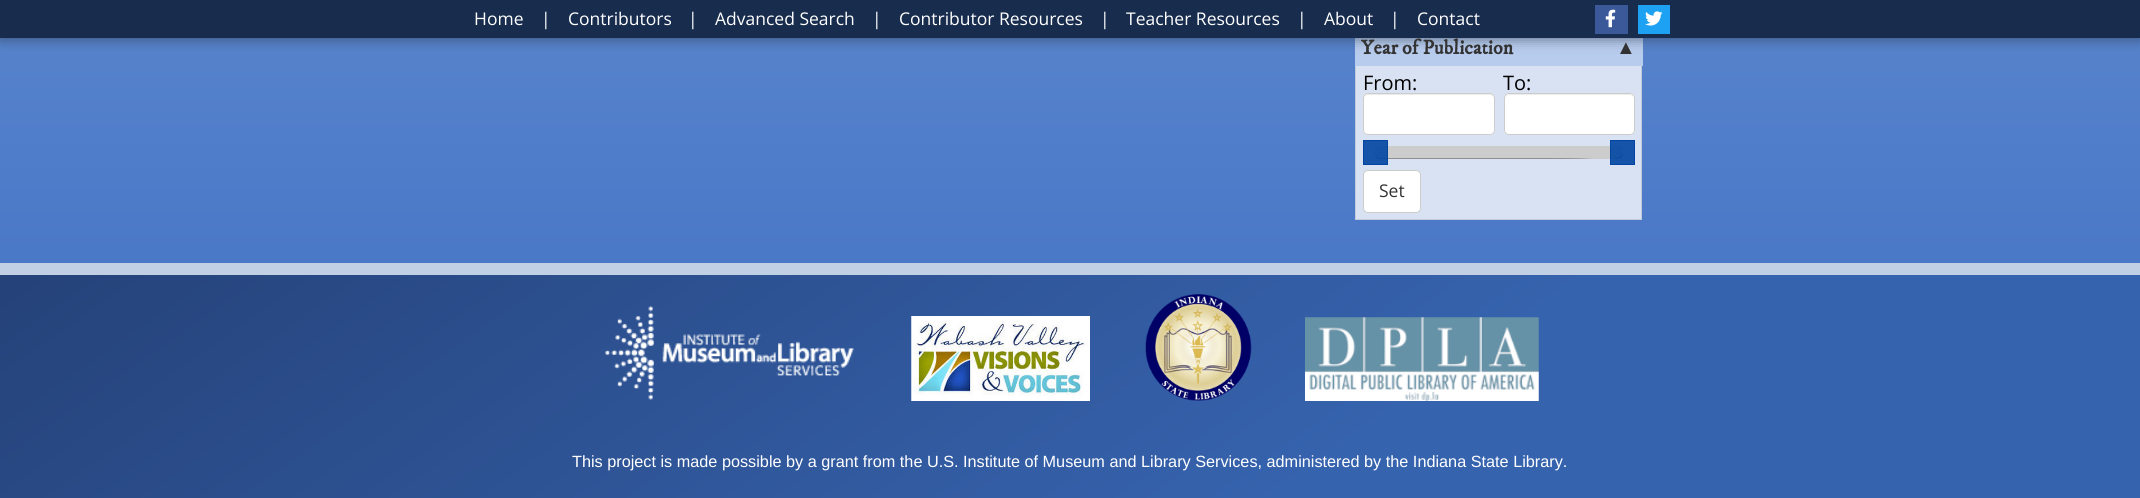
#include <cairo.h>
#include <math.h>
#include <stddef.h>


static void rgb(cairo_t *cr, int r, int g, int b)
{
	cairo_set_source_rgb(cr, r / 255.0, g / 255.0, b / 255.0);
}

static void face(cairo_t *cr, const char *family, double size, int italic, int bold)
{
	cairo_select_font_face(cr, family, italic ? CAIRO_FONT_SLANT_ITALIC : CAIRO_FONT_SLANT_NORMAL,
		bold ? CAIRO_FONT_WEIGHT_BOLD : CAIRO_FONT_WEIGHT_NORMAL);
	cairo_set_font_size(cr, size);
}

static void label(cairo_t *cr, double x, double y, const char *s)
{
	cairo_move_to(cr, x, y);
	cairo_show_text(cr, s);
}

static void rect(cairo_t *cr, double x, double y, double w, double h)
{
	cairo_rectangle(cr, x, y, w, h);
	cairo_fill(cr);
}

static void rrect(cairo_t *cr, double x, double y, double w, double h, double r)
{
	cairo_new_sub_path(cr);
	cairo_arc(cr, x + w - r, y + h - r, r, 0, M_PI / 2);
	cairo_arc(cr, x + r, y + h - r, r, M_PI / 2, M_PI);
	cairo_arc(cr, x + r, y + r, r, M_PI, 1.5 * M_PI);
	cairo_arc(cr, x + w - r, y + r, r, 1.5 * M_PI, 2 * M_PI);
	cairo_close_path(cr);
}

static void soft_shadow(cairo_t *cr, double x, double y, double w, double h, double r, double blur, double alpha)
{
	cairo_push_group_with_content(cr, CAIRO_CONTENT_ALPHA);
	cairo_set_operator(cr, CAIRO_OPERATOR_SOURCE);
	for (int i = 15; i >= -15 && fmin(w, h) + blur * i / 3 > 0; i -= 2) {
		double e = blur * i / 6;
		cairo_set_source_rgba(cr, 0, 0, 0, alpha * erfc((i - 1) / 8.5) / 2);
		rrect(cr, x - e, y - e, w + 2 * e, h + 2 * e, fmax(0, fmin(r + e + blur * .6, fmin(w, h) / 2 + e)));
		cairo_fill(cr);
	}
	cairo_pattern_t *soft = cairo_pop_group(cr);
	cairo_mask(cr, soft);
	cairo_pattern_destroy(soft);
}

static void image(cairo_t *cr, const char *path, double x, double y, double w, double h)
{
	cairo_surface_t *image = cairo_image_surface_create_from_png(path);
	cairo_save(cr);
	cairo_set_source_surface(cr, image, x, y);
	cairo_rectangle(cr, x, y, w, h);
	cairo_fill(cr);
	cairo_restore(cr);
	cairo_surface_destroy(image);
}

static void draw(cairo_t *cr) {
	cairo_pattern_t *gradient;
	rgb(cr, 255, 255, 255);
	cairo_paint(cr);
	gradient = cairo_pattern_create_linear(1070, 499, 1070, -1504);
	cairo_pattern_add_color_stop_rgba(gradient, 0, 0.235, 0.431, 0.765, 1);
	cairo_pattern_add_color_stop_rgba(gradient, 0.33, 0.384, 0.545, 0.812, 1);
	cairo_pattern_add_color_stop_rgba(gradient, 0.67, 0.541, 0.659, 0.859, 1);
	cairo_pattern_add_color_stop_rgba(gradient, 1, 0.541, 0.659, 0.859, 1);
	cairo_set_source(cr, gradient);
	cairo_pattern_destroy(gradient);
	rect(cr, 0, 38, 2140, 225);
	rgb(cr, 184, 204, 238);
	rect(cr, 1355, 38, 288, 28);
	rgb(cr, 36, 50, 66);
	soft_shadow(cr, 0, 3, 2140, 37, 0, 6, 0.54);
	rgb(cr, 24, 44, 78);
	rect(cr, 0, 0, 2140, 38);
	face(cr, "Open Sans", 17.5, 0, 0);
	rgb(cr, 255, 255, 255);
	label(cr, 474, 25, "Home");
	label(cr, 541, 25, "|");
	label(cr, 568, 25, "Contributors");
	label(cr, 688, 25, "|");
	label(cr, 715, 25, "Advanced Search");
	label(cr, 872, 25, "|");
	label(cr, 899, 25, "Contributor Resources");
	label(cr, 1100, 25, "|");
	label(cr, 1126, 25, "Teacher Resources");
	label(cr, 1297, 25, "|");
	label(cr, 1324, 25, "About");
	label(cr, 1390, 25, "|");
	label(cr, 1417, 25, "Contact");
	rgb(cr, 59, 89, 152);
	rect(cr, 1595, 5, 33, 29);
	image(cr, "image0.png", 1605, 9, 11, 19);
	rgb(cr, 29, 161, 242);
	rect(cr, 1638, 5, 32, 29);
	image(cr, "image1.png", 1645, 11, 18, 15);
	face(cr, "IM FELL DW Pica", 20, 0, 1);
	rgb(cr, 51, 51, 51);
	label(cr, 1361, 54, "Year of Publication");
	face(cr, "Liberation Serif", 20, 0, 1);
	label(cr, 1616, 54, "▲");
	rgb(cr, 194, 203, 218);
	rect(cr, 1641, 66, 1, 154);
	rect(cr, 1355, 66, 1, 154);
	rgb(cr, 216, 226, 243);
	rect(cr, 1356, 66, 285, 153);
	rgb(cr, 194, 203, 218);
	rect(cr, 1356, 219, 285, 1);
	face(cr, "Open Sans", 20, 0, 0);
	rgb(cr, 0, 0, 0);
	label(cr, 1363, 90, "From:");
	rgb(cr, 255, 255, 255);
	rrect(cr, 1363, 93, 132, 42, 5);
	cairo_fill(cr);
	rgb(cr, 236, 236, 236);
	cairo_new_path(cr);
	cairo_move_to(cr, 1368, 95);
	cairo_line_to(cr, 1490, 95);
	cairo_curve_to(cr, 1492, 95, 1494, 97, 1494, 99);
	cairo_line_to(cr, 1494, 98);
	cairo_curve_to(cr, 1494, 96, 1492, 94, 1490, 94);
	cairo_line_to(cr, 1368, 94);
	cairo_curve_to(cr, 1366, 94, 1364, 96, 1364, 98);
	cairo_line_to(cr, 1364, 99);
	cairo_curve_to(cr, 1364, 97, 1365, 95, 1368, 95);
	cairo_close_path(cr);
	cairo_fill(cr);
	rrect(cr, 1363.5, 93.5, 131, 41, 4.5);
	rgb(cr, 204, 204, 204);
	cairo_set_line_width(cr, 1);
	cairo_stroke(cr);
	rgb(cr, 0, 0, 0);
	label(cr, 1503, 90, "To:");
	rgb(cr, 255, 255, 255);
	rrect(cr, 1504, 93, 131, 42, 5);
	cairo_fill(cr);
	rgb(cr, 236, 236, 236);
	cairo_new_path(cr);
	cairo_move_to(cr, 1509, 95);
	cairo_line_to(cr, 1630, 95);
	cairo_curve_to(cr, 1632, 95, 1634, 97, 1634, 99);
	cairo_curve_to(cr, 1634, 89, 1612, 94, 1610, 94);
	cairo_line_to(cr, 1529, 94);
	cairo_curve_to(cr, 1527, 94, 1505, 89, 1505, 99);
	cairo_curve_to(cr, 1505, 97, 1507, 95, 1509, 95);
	cairo_close_path(cr);
	cairo_fill(cr);
	rrect(cr, 1504.5, 93.5, 130, 41, 4.5);
	rgb(cr, 204, 204, 204);
	cairo_stroke(cr);
	cairo_set_source_rgba(cr, 0, 0, 0, 0.4);
	cairo_set_fill_rule(cr, CAIRO_FILL_RULE_EVEN_ODD);
	cairo_new_path(cr);
	cairo_move_to(cr, 1380, 148);
	cairo_line_to(cr, 1618, 148);
	cairo_curve_to(cr, 1621, 148, 1623, 150, 1623, 153);
	cairo_line_to(cr, 1623, 151);
	cairo_curve_to(cr, 1623, 148, 1621, 146, 1618, 146);
	cairo_line_to(cr, 1380, 146);
	cairo_curve_to(cr, 1377, 146, 1375, 148, 1375, 151);
	cairo_line_to(cr, 1375, 152);
	cairo_curve_to(cr, 1376, 150, 1377, 148, 1380, 148);
	cairo_close_path(cr);
	cairo_move_to(cr, 1623, 154);
	cairo_line_to(cr, 1623, 156);
	cairo_close_path(cr);
	cairo_fill(cr);
	rgb(cr, 204, 204, 204);
	rrect(cr, 1375, 146, 248, 13, 5);
	cairo_fill(cr);
	cairo_set_source_rgba(cr, 0, 0, 0, 0.3);
	cairo_new_path(cr);
	cairo_move_to(cr, 1375, 153);
	cairo_curve_to(cr, 1375, 156, 1377, 159, 1380, 159);
	cairo_line_to(cr, 1594, 159);
	cairo_curve_to(cr, 1577, 158, 1562, 158, 1545, 158);
	cairo_line_to(cr, 1379, 158);
	cairo_curve_to(cr, 1377, 157, 1376, 155, 1375, 153);
	cairo_close_path(cr);
	cairo_move_to(cr, 1612, 159);
	cairo_curve_to(cr, 1619, 159, 1623, 160, 1623, 152);
	cairo_curve_to(cr, 1622, 157, 1616, 158, 1612, 159);
	cairo_close_path(cr);
	cairo_fill(cr);
	cairo_set_source_rgba(cr, 0, 0.271, 0.631, 0.9);
	rect(cr, 1363, 140, 25, 25);
	cairo_rectangle(cr, 1363.5, 140.5, 24, 24);
	cairo_stroke(cr);
	rect(cr, 1610, 140, 25, 25);
	cairo_rectangle(cr, 1610.5, 140.5, 24, 24);
	cairo_stroke(cr);
	rgb(cr, 255, 255, 255);
	rrect(cr, 1363.5, 170.5, 57, 42, 4.5);
	cairo_fill_preserve(cr);
	rgb(cr, 204, 204, 204);
	cairo_stroke(cr);
	face(cr, "Open Sans", 17.5, 0, 0);
	rgb(cr, 51, 51, 51);
	label(cr, 1379, 197, "Set");
	gradient = cairo_pattern_create_linear(1475, 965, 665, -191);
	cairo_pattern_add_color_stop_rgba(gradient, 0.35, 0.212, 0.388, 0.682, 1);
	cairo_pattern_add_color_stop_rgba(gradient, 1, 0.145, 0.259, 0.475, 1);
	cairo_set_source(cr, gradient);
	cairo_pattern_destroy(gradient);
	rect(cr, 0, 275, 2140, 223);
	rgb(cr, 194, 208, 230);
	rect(cr, 0, 263, 2140, 12);
	image(cr, "image2.png", 605, 305, 249, 95);
	image(cr, "image3.png", 911, 316, 179, 85);
	image(cr, "image4.png", 1145, 294, 107, 107);
	image(cr, "image5.png", 1305, 317, 234, 84);
	face(cr, "Liberation Sans", 16.25, 0, 0);
	rgb(cr, 255, 255, 255);
	label(cr, 572, 467, "This project is made possible by a grant from the U.S. Institute of Museum and Library Services, administered by the Indiana State Library.");
}

int main(void) {
	cairo_surface_t *surface = cairo_image_surface_create(CAIRO_FORMAT_RGB24, 2140, 498);
	cairo_t *cr = cairo_create(surface);
	cairo_font_options_t *options = cairo_font_options_create();
	cairo_font_options_set_hint_metrics(options, CAIRO_HINT_METRICS_OFF);
	cairo_font_options_set_hint_style(options, CAIRO_HINT_STYLE_NONE);
	cairo_set_font_options(cr, options);
	cairo_set_miter_limit(cr, 4);
	draw(cr);
	cairo_surface_write_to_png(surface, "render.png");
	cairo_font_options_destroy(options);
	cairo_destroy(cr);
	cairo_surface_destroy(surface);
	return 0;
}
